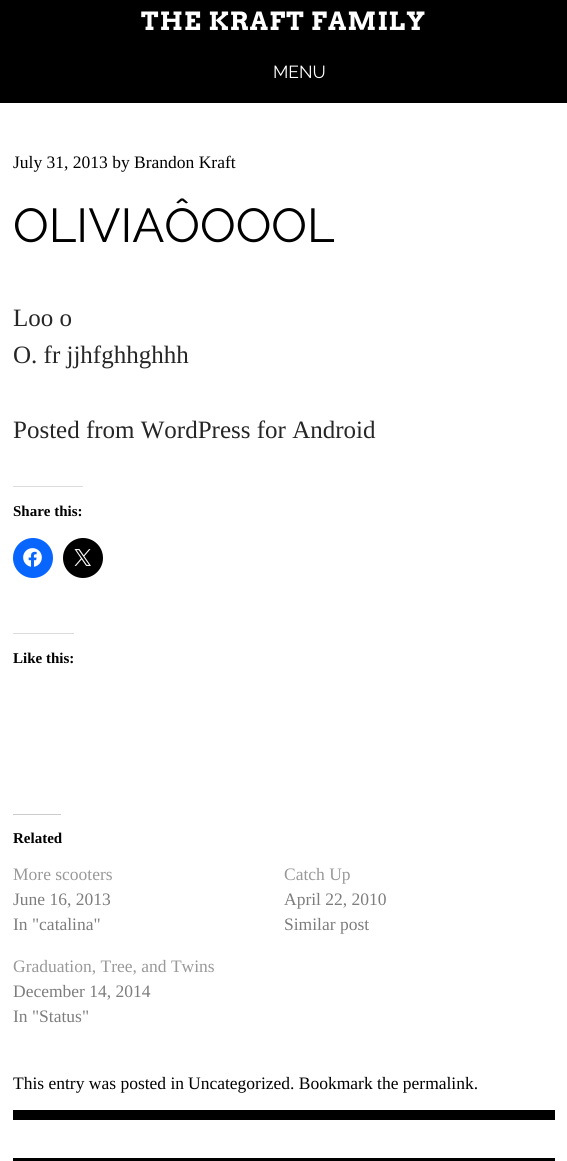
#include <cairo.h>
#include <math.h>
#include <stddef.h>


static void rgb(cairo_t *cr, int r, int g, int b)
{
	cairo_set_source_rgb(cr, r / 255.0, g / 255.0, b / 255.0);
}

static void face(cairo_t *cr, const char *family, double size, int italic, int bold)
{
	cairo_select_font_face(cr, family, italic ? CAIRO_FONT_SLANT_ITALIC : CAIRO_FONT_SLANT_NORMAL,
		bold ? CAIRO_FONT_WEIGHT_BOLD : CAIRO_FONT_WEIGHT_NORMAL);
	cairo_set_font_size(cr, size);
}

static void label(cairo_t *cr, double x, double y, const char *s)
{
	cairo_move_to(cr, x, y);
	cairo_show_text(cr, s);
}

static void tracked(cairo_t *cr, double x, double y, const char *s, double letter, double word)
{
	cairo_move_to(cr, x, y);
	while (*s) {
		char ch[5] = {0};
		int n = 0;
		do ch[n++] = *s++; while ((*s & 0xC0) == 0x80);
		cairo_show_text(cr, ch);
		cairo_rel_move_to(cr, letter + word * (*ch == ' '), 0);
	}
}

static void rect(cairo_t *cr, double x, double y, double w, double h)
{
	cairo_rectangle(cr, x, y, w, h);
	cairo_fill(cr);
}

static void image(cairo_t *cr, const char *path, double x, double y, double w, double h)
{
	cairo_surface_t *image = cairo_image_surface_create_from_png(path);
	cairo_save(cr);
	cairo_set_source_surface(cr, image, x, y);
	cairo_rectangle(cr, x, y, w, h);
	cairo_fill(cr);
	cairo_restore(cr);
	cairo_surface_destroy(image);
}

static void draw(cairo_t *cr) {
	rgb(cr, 255, 255, 255);
	cairo_paint(cr);
	rgb(cr, 0, 0, 0);
	rect(cr, 0, 0, 567, 103);
	face(cr, "Arvo", 25, 0, 1);
	rgb(cr, 255, 255, 255);
	tracked(cr, 141, 30, "THE KRAFT FAMILY", 1.25, 0);
	face(cr, "Raleway", 17.5, 0, 0);
	label(cr, 273, 78, "MENU");
	rgb(cr, 0, 0, 0);
	rect(cr, 13, 1110, 542, 10);
	face(cr, "Liberation Serif", 17.5, 0, 0);
	label(cr, 13, 168, "July 31, 2013 by Brandon Kraft");
	face(cr, "Raleway", 47.5, 0, 0);
	label(cr, 13, 242, "OLIVIAÔOOOL");
	face(cr, "Liberation Serif", 25, 0, 0);
	rgb(cr, 38, 38, 38);
	label(cr, 13, 326, "Loo o");
	label(cr, 13, 363, "O. fr jjhfghhghhh");
	label(cr, 13, 438, "Posted from WordPress for Android");
	rgb(cr, 220, 220, 222);
	rect(cr, 13, 486, 70, 1);
	face(cr, "Liberation Serif", 15, 0, 1);
	rgb(cr, 0, 0, 0);
	label(cr, 13, 516, "Share this:");
	rgb(cr, 8, 102, 255);
	cairo_new_path(cr);
	cairo_arc(cr, 33, 558, 20, 0, 2 * M_PI);
	cairo_fill(cr);
	image(cr, "image0.png", 23, 548, 19, 19);
	rgb(cr, 0, 0, 0);
	cairo_arc(cr, 83, 558, 20, 0, 2 * M_PI);
	cairo_fill(cr);
	image(cr, "image1.png", 74, 549, 17, 17);
	rgb(cr, 220, 220, 222);
	rect(cr, 13, 633, 61, 1);
	rgb(cr, 0, 0, 0);
	label(cr, 13, 663, "Like this:");
	rgb(cr, 204, 204, 204);
	rect(cr, 13, 814, 48, 1);
	rgb(cr, 0, 0, 0);
	label(cr, 13, 843, "Related");
	face(cr, "Liberation Serif", 17.5, 0, 0);
	rgb(cr, 153, 153, 153);
	label(cr, 13, 880, "More scooters");
	rgb(cr, 125, 125, 125);
	label(cr, 13, 905, "June 16, 2013");
	label(cr, 13, 930, "In \"catalina\"");
	rgb(cr, 153, 153, 153);
	label(cr, 284, 880, "Catch Up");
	rgb(cr, 125, 125, 125);
	label(cr, 284, 905, "April 22, 2010");
	label(cr, 284, 930, "Similar post");
	rgb(cr, 153, 153, 153);
	label(cr, 13, 972, "Graduation, Tree, and Twins");
	rgb(cr, 125, 125, 125);
	label(cr, 13, 997, "December 14, 2014");
	label(cr, 13, 1022, "In \"Status\"");
	cairo_save(cr);
	cairo_rectangle(cr, 13, 1073, 542, 22);
	cairo_clip(cr);
	rgb(cr, 0, 0, 0);
	label(cr, 13, 1089, "This entry was posted in");
	cairo_restore(cr);
	rgb(cr, 0, 0, 0);
	label(cr, 188, 1089, "Uncategorized. Bookmark the permalink.");
	rect(cr, 13, 1158, 542, 3);
}

int main(void) {
	cairo_surface_t *surface = cairo_image_surface_create(CAIRO_FORMAT_RGB24, 567, 1161);
	cairo_t *cr = cairo_create(surface);
	cairo_font_options_t *options = cairo_font_options_create();
	cairo_font_options_set_hint_metrics(options, CAIRO_HINT_METRICS_OFF);
	cairo_font_options_set_hint_style(options, CAIRO_HINT_STYLE_NONE);
	cairo_set_font_options(cr, options);
	cairo_set_miter_limit(cr, 4);
	draw(cr);
	cairo_surface_write_to_png(surface, "render.png");
	cairo_font_options_destroy(options);
	cairo_destroy(cr);
	cairo_surface_destroy(surface);
	return 0;
}
